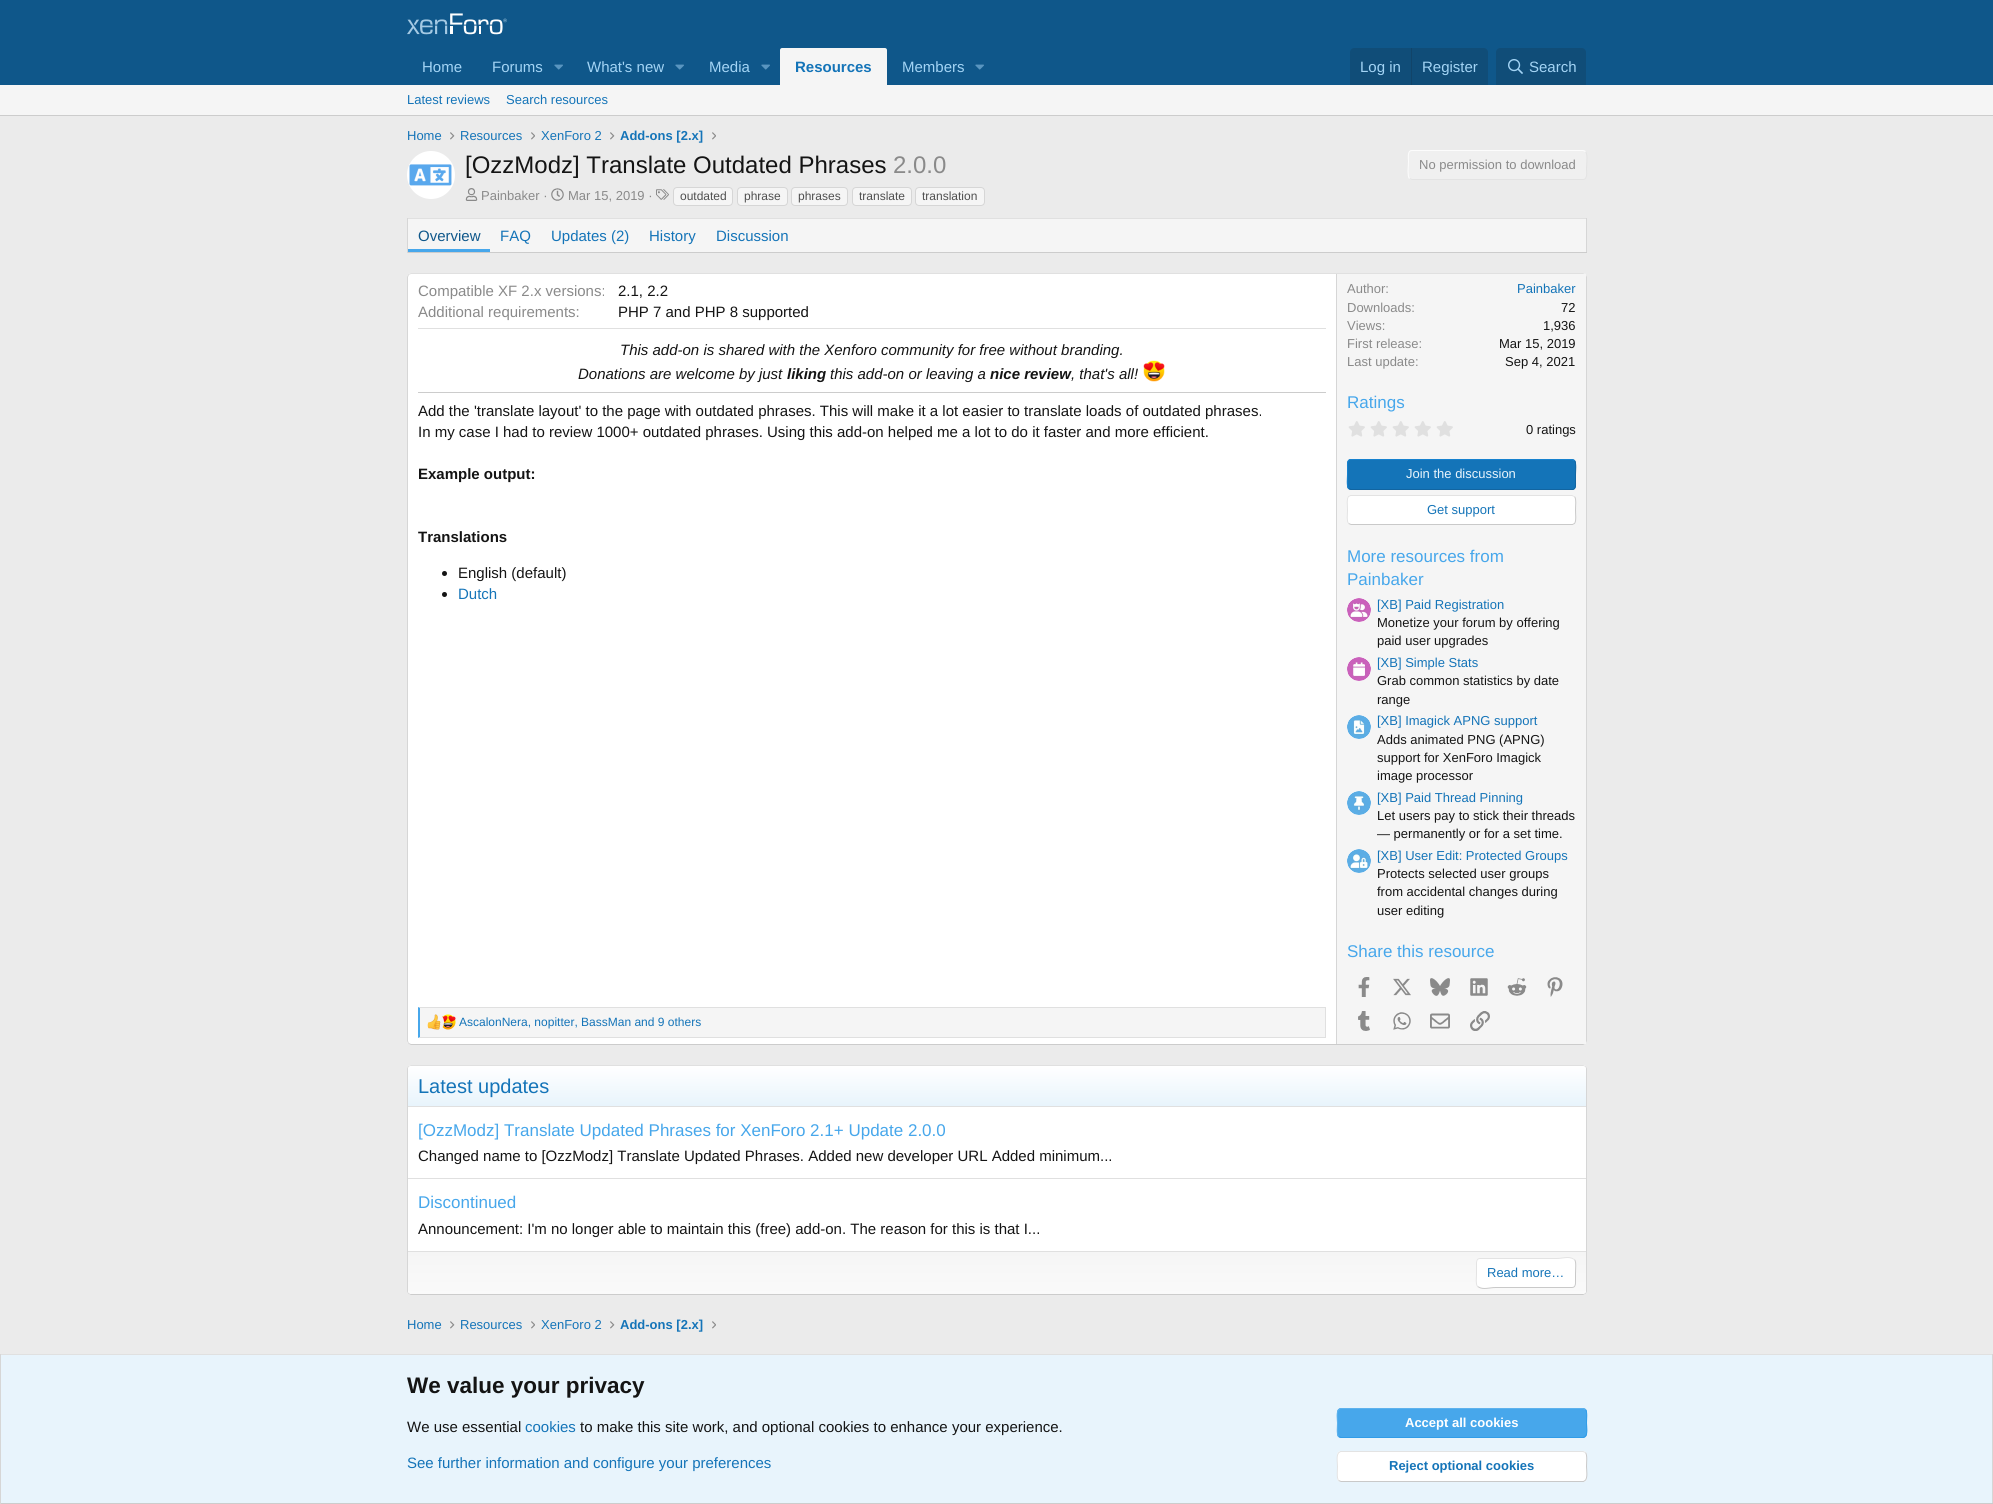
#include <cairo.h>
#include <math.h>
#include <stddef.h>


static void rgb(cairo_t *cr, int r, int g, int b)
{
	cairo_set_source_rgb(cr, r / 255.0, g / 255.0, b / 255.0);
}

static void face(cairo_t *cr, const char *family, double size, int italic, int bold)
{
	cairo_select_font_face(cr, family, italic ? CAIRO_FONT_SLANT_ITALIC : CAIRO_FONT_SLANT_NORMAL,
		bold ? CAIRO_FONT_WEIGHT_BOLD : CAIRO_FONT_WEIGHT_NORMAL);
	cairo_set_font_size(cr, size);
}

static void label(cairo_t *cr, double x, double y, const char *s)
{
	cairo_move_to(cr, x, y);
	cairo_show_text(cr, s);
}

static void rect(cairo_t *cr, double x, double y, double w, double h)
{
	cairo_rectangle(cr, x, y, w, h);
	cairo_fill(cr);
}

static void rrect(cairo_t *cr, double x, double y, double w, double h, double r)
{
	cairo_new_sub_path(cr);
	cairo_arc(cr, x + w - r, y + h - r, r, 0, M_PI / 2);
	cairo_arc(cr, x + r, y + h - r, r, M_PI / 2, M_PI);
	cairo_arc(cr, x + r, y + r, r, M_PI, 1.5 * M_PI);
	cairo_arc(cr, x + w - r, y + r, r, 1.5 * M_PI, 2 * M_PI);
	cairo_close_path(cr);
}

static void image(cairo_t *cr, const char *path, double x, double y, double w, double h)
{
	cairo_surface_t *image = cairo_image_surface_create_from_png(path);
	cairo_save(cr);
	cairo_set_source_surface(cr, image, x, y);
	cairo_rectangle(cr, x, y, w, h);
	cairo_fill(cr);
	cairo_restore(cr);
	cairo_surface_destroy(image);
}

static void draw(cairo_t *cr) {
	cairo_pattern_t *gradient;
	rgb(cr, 235, 235, 235);
	cairo_paint(cr);
	rgb(cr, 15, 87, 138);
	rect(cr, 0, 0, 1993, 85);
	image(cr, "image0.png", 407, 13, 100, 22);
	face(cr, "Liberation Sans", 15, 0, 0);
	rgb(cr, 163, 212, 245);
	label(cr, 422, 72, "Home");
	label(cr, 492, 72, "Forums");
	image(cr, "image1.png", 554, 64, 9, 6);
	label(cr, 587, 72, "What's new");
	image(cr, "image1.png", 675, 64, 9, 6);
	label(cr, 709, 72, "Media");
	image(cr, "image1.png", 761, 64, 9, 6);
	rgb(cr, 245, 245, 245);
	cairo_new_path(cr);
	cairo_move_to(cr, 782, 48);
	cairo_line_to(cr, 885, 48);
	cairo_curve_to(cr, 886, 48, 887, 49, 887, 50);
	cairo_line_to(cr, 887, 85);
	cairo_line_to(cr, 780, 85);
	cairo_line_to(cr, 780, 50);
	cairo_curve_to(cr, 780, 49, 781, 48, 782, 48);
	cairo_close_path(cr);
	cairo_fill(cr);
	face(cr, "Liberation Sans", 15, 0, 1);
	rgb(cr, 20, 116, 184);
	label(cr, 795, 72, "Resources");
	face(cr, "Liberation Sans", 15, 0, 0);
	rgb(cr, 163, 212, 245);
	label(cr, 902, 72, "Members");
	image(cr, "image1.png", 975, 64, 9, 6);
	rgb(cr, 16, 77, 120);
	cairo_new_path(cr);
	cairo_move_to(cr, 1354, 48);
	cairo_line_to(cr, 1484, 48);
	cairo_curve_to(cr, 1486, 48, 1488, 50, 1488, 52);
	cairo_line_to(cr, 1488, 85);
	cairo_line_to(cr, 1350, 85);
	cairo_line_to(cr, 1350, 52);
	cairo_curve_to(cr, 1350, 50, 1352, 48, 1354, 48);
	cairo_close_path(cr);
	cairo_fill(cr);
	rgb(cr, 163, 212, 245);
	label(cr, 1360, 72, "Log in");
	rgb(cr, 17, 68, 105);
	rect(cr, 1411, 48, 1, 37);
	rgb(cr, 163, 212, 245);
	label(cr, 1422, 72, "Register");
	rgb(cr, 16, 77, 120);
	cairo_new_path(cr);
	cairo_move_to(cr, 1500, 48);
	cairo_line_to(cr, 1582, 48);
	cairo_curve_to(cr, 1584, 48, 1586, 50, 1586, 52);
	cairo_line_to(cr, 1586, 85);
	cairo_line_to(cr, 1496, 85);
	cairo_line_to(cr, 1496, 52);
	cairo_curve_to(cr, 1496, 50, 1498, 48, 1500, 48);
	cairo_close_path(cr);
	cairo_fill(cr);
	image(cr, "image2.png", 1508, 59, 15, 15);
	rgb(cr, 163, 212, 245);
	label(cr, 1529, 72, "Search");
	rgb(cr, 245, 245, 245);
	rect(cr, 0, 85, 1993, 30);
	rgb(cr, 204, 204, 204);
	rect(cr, 0, 115, 1993, 1);
	face(cr, "Liberation Sans", 13, 0, 0);
	rgb(cr, 20, 116, 184);
	label(cr, 407, 104, "Latest reviews");
	label(cr, 506, 104, "Search resources");
	label(cr, 407, 140, "Home");
	image(cr, "image3.png", 450, 132, 5, 8);
	label(cr, 460, 140, "Resources");
	image(cr, "image4.png", 531, 132, 4, 8);
	label(cr, 541, 140, "XenForo 2");
	image(cr, "image3.png", 610, 132, 5, 8);
	face(cr, "Liberation Sans", 13, 0, 1);
	label(cr, 620, 140, "Add-ons [2.x]");
	image(cr, "image4.png", 712, 132, 4, 8);
	rgb(cr, 255, 255, 255);
	cairo_arc(cr, 431, 175, 24, 0, 2 * M_PI);
	cairo_fill(cr);
	image(cr, "image5.png", 409, 164, 43, 22);
	face(cr, "Liberation Sans", 24, 0, 0);
	rgb(cr, 20, 20, 20);
	label(cr, 465, 173, "[OzzModz] Translate Outdated Phrases");
	rgb(cr, 138, 138, 138);
	label(cr, 893, 173, "2.0.0");
	rgb(cr, 240, 240, 240);
	rrect(cr, 1408, 150, 179, 30, 4);
	cairo_fill(cr);
	cairo_new_path(cr);
	cairo_move_to(cr, 1585.5, 151.5);
	cairo_curve_to(cr, 1588, 154, 1586.5, 165.5, 1586.5, 168.5);
	cairo_curve_to(cr, 1586.5, 171.5, 1588, 179.5, 1583, 179.5);
	cairo_line_to(cr, 1412, 179.5);
	cairo_line_to(cr, 1409.5, 178.5);
	rgb(cr, 227, 227, 227);
	cairo_set_line_width(cr, 1);
	cairo_stroke(cr);
	cairo_new_path(cr);
	cairo_move_to(cr, 1409.5, 178.5);
	cairo_curve_to(cr, 1407, 176, 1408.5, 164.5, 1408.5, 161.5);
	cairo_curve_to(cr, 1408.5, 158.5, 1407, 150.5, 1412, 150.5);
	cairo_line_to(cr, 1583, 150.5);
	cairo_line_to(cr, 1585.5, 151.5);
	rgb(cr, 252, 252, 252);
	cairo_stroke(cr);
	face(cr, "Liberation Sans", 13, 0, 0);
	rgb(cr, 138, 138, 138);
	label(cr, 1419, 169, "No permission to download");
	image(cr, "image6.png", 465, 188, 13, 13);
	label(cr, 481, 200, "Painbaker ·");
	image(cr, "image7.png", 551, 188, 13, 13);
	label(cr, 568, 200, "Mar 15, 2019 ·");
	image(cr, "image8.png", 656, 189, 13, 11);
	rgb(cr, 245, 245, 245);
	rrect(cr, 673.5, 187.5, 59, 18, 3.5);
	cairo_fill_preserve(cr);
	rgb(cr, 214, 214, 214);
	cairo_stroke(cr);
	face(cr, "Liberation Sans", 12, 0, 0);
	rgb(cr, 79, 79, 79);
	label(cr, 680, 200, "outdated");
	rgb(cr, 245, 245, 245);
	rrect(cr, 737.5, 187.5, 50, 18, 3.5);
	cairo_fill_preserve(cr);
	rgb(cr, 214, 214, 214);
	cairo_stroke(cr);
	rgb(cr, 79, 79, 79);
	label(cr, 744, 200, "phrase");
	rgb(cr, 245, 245, 245);
	rrect(cr, 791.5, 187.5, 56, 18, 3.5);
	cairo_fill_preserve(cr);
	rgb(cr, 214, 214, 214);
	cairo_stroke(cr);
	rgb(cr, 79, 79, 79);
	label(cr, 798, 200, "phrases");
	rgb(cr, 245, 245, 245);
	rrect(cr, 852.5, 187.5, 59, 18, 3.5);
	cairo_fill_preserve(cr);
	rgb(cr, 214, 214, 214);
	cairo_stroke(cr);
	rgb(cr, 79, 79, 79);
	label(cr, 859, 200, "translate");
	rgb(cr, 245, 245, 245);
	rrect(cr, 915.5, 187.5, 69, 18, 3.5);
	cairo_fill_preserve(cr);
	rgb(cr, 214, 214, 214);
	cairo_stroke(cr);
	rgb(cr, 79, 79, 79);
	label(cr, 922, 200, "translation");
	rgb(cr, 245, 245, 245);
	rect(cr, 408, 219, 1178, 33);
	rgb(cr, 224, 224, 224);
	rect(cr, 407, 218, 1180, 1);
	rgb(cr, 214, 214, 214);
	rect(cr, 1586, 218, 1, 35);
	rgb(cr, 204, 204, 204);
	rect(cr, 407, 252, 1180, 1);
	rgb(cr, 214, 214, 214);
	rect(cr, 407, 218, 1, 35);
	rgb(cr, 71, 167, 235);
	rect(cr, 408, 249, 82, 3);
	face(cr, "Liberation Sans", 15, 0, 0);
	rgb(cr, 15, 87, 138);
	label(cr, 418, 241, "Overview");
	rgb(cr, 20, 116, 184);
	label(cr, 500, 241, "FAQ");
	label(cr, 551, 241, "Updates (2)");
	label(cr, 649, 241, "History");
	label(cr, 716, 241, "Discussion");
	rgb(cr, 255, 255, 255);
	rrect(cr, 407, 273, 1180, 772, 4);
	cairo_fill(cr);
	cairo_new_path(cr);
	cairo_move_to(cr, 408.5, 274.5);
	cairo_line_to(cr, 411, 273.5);
	cairo_line_to(cr, 1583, 273.5);
	cairo_line_to(cr, 1585.5, 274.5);
	rgb(cr, 224, 224, 224);
	cairo_stroke(cr);
	cairo_new_path(cr);
	cairo_move_to(cr, 1585.5, 274.5);
	cairo_line_to(cr, 1586.5, 277);
	cairo_line_to(cr, 1586.5, 1041);
	cairo_line_to(cr, 1585.5, 1043.5);
	rgb(cr, 214, 214, 214);
	cairo_stroke(cr);
	cairo_new_path(cr);
	cairo_move_to(cr, 1585.5, 1043.5);
	cairo_line_to(cr, 1583, 1044.5);
	cairo_line_to(cr, 411, 1044.5);
	cairo_line_to(cr, 408.5, 1043.5);
	rgb(cr, 204, 204, 204);
	cairo_stroke(cr);
	cairo_new_path(cr);
	cairo_move_to(cr, 408.5, 1043.5);
	cairo_line_to(cr, 407.5, 1041);
	cairo_line_to(cr, 407.5, 277);
	cairo_line_to(cr, 408.5, 274.5);
	rgb(cr, 214, 214, 214);
	cairo_stroke(cr);
	rgb(cr, 224, 224, 224);
	rect(cr, 418, 328, 908, 1);
	rgb(cr, 138, 138, 138);
	label(cr, 418, 296, "Compatible XF 2.x versions:");
	rgb(cr, 20, 20, 20);
	label(cr, 618, 296, "2.1, 2.2");
	rgb(cr, 138, 138, 138);
	label(cr, 418, 317, "Additional requirements:");
	rgb(cr, 20, 20, 20);
	label(cr, 618, 317, "PHP 7 and PHP 8 supported");
	face(cr, "Liberation Sans", 15, 1, 0);
	label(cr, 620, 355, "This add-on is shared with the Xenforo community for free without branding.");
	label(cr, 578, 379, "Donations are welcome by just");
	face(cr, "Liberation Sans", 15, 1, 1);
	label(cr, 787, 379, "liking");
	face(cr, "Liberation Sans", 15, 1, 0);
	label(cr, 830, 379, "this add-on or leaving a");
	face(cr, "Liberation Sans", 15, 1, 1);
	label(cr, 990, 379, "nice review");
	face(cr, "Liberation Sans", 15, 1, 0);
	label(cr, 1071, 379, ", that's all!");
	image(cr, "image9.png", 1143, 360, 22, 22);
	rgb(cr, 204, 204, 204);
	rect(cr, 418, 392, 908, 1);
	face(cr, "Liberation Sans", 15, 0, 0);
	rgb(cr, 20, 20, 20);
	label(cr, 418, 416, "Add the 'translate layout' to the page with outdated phrases. This will make it a lot easier to translate loads of outdated phrases.");
	label(cr, 418, 437, "In my case I had to review 1000+ outdated phrases. Using this add-on helped me a lot to do it faster and more efficient.");
	face(cr, "Liberation Sans", 15, 0, 1);
	label(cr, 418, 479, "Example output:");
	label(cr, 418, 542, "Translations");
	cairo_new_path(cr);
	cairo_arc(cr, 444.5, 573.5, 2.5, 0, 2 * M_PI);
	cairo_fill(cr);
	face(cr, "Liberation Sans", 15, 0, 0);
	label(cr, 458, 578, "English (default)");
	cairo_new_path(cr);
	cairo_arc(cr, 444.5, 594.5, 2.5, 0, 2 * M_PI);
	cairo_fill(cr);
	rgb(cr, 20, 116, 184);
	label(cr, 458, 599, "Dutch");
	rgb(cr, 245, 245, 245);
	rect(cr, 420, 1008, 905, 29);
	rgb(cr, 224, 224, 224);
	cairo_new_path(cr);
	cairo_move_to(cr, 418, 1007);
	cairo_line_to(cr, 1326, 1007);
	cairo_line_to(cr, 1325, 1008);
	cairo_line_to(cr, 420, 1008);
	cairo_close_path(cr);
	cairo_fill(cr);
	rect(cr, 1325, 1007, 1, 31);
	cairo_new_path(cr);
	cairo_move_to(cr, 1326, 1038);
	cairo_line_to(cr, 418, 1038);
	cairo_line_to(cr, 420, 1037);
	cairo_line_to(cr, 1325, 1037);
	cairo_close_path(cr);
	cairo_fill(cr);
	rgb(cr, 71, 167, 235);
	cairo_new_path(cr);
	cairo_move_to(cr, 418, 1038);
	cairo_line_to(cr, 418, 1007);
	cairo_line_to(cr, 420, 1008);
	cairo_line_to(cr, 420, 1037);
	cairo_close_path(cr);
	cairo_fill(cr);
	image(cr, "image11.png", 442, 1014, 14, 16);
	rgb(cr, 245, 245, 245);
	cairo_arc(cr, 434, 1022, 10, 0, 2 * M_PI);
	cairo_fill(cr);
	image(cr, "image10.png", 427, 1014, 14, 16);
	face(cr, "Liberation Sans", 12, 0, 0);
	rgb(cr, 20, 116, 184);
	label(cr, 459, 1026, "AscalonNera, nopitter, BassMan and 9 others");
	rgb(cr, 245, 245, 245);
	rect(cr, 1337, 274, 249, 770);
	rgb(cr, 214, 214, 214);
	rect(cr, 1336, 274, 1, 770);
	face(cr, "Liberation Sans", 13, 0, 0);
	rgb(cr, 138, 138, 138);
	label(cr, 1347, 293, "Author:");
	rgb(cr, 20, 116, 184);
	label(cr, 1517, 293, "Painbaker");
	rgb(cr, 138, 138, 138);
	label(cr, 1347, 312, "Downloads:");
	rgb(cr, 20, 20, 20);
	label(cr, 1561, 312, "72");
	rgb(cr, 138, 138, 138);
	label(cr, 1347, 330, "Views:");
	rgb(cr, 20, 20, 20);
	label(cr, 1543, 330, "1,936");
	rgb(cr, 138, 138, 138);
	label(cr, 1347, 348, "First release:");
	rgb(cr, 20, 20, 20);
	label(cr, 1499, 348, "Mar 15, 2019");
	rgb(cr, 138, 138, 138);
	label(cr, 1347, 366, "Last update:");
	rgb(cr, 20, 20, 20);
	label(cr, 1505, 366, "Sep 4, 2021");
	face(cr, "Liberation Sans", 17, 0, 0);
	rgb(cr, 71, 167, 235);
	label(cr, 1347, 408, "Ratings");
	image(cr, "image12.png", 1348, 421, 17, 16);
	image(cr, "image12.png", 1370, 421, 17, 16);
	image(cr, "image12.png", 1392, 421, 17, 16);
	image(cr, "image12.png", 1414, 421, 17, 16);
	image(cr, "image12.png", 1436, 421, 17, 16);
	face(cr, "Liberation Sans", 13, 0, 0);
	rgb(cr, 20, 20, 20);
	label(cr, 1526, 434, "0 ratings");
	rgb(cr, 20, 116, 184);
	rrect(cr, 1347, 459, 229, 31, 4);
	cairo_fill(cr);
	cairo_new_path(cr);
	cairo_move_to(cr, 1574.5, 460.5);
	cairo_curve_to(cr, 1576.5, 463, 1575.5, 471.5, 1575.5, 474.5);
	cairo_line_to(cr, 1575.5, 482);
	cairo_curve_to(cr, 1575.5, 484.5, 1576, 488.5, 1573, 489.5);
	cairo_line_to(cr, 1351, 489.5);
	cairo_line_to(cr, 1348.5, 488.5);
	rgb(cr, 18, 101, 161);
	cairo_stroke(cr);
	cairo_new_path(cr);
	cairo_move_to(cr, 1348.5, 488.5);
	cairo_curve_to(cr, 1346.5, 486, 1347.5, 477.5, 1347.5, 474.5);
	cairo_line_to(cr, 1347.5, 467);
	cairo_curve_to(cr, 1347.5, 464.5, 1347, 460.5, 1350, 459.5);
	cairo_line_to(cr, 1572, 459.5);
	cairo_line_to(cr, 1574.5, 460.5);
	rgb(cr, 23, 130, 207);
	cairo_stroke(cr);
	rgb(cr, 232, 244, 252);
	label(cr, 1406, 478, "Join the discussion");
	rgb(cr, 255, 255, 255);
	rrect(cr, 1347, 495, 229, 30, 4);
	cairo_fill(cr);
	cairo_new_path(cr);
	cairo_move_to(cr, 1574.5, 496.5);
	cairo_curve_to(cr, 1576.5, 498.5, 1575.5, 507, 1575.5, 510);
	cairo_curve_to(cr, 1575.5, 513, 1576.5, 521.5, 1574.5, 523.5);
	cairo_line_to(cr, 1572.5, 524.5);
	cairo_line_to(cr, 1424.5, 524.5);
	cairo_line_to(cr, 1351, 524.5);
	cairo_line_to(cr, 1348.5, 523.5);
	rgb(cr, 201, 201, 201);
	cairo_stroke(cr);
	cairo_new_path(cr);
	cairo_move_to(cr, 1348.5, 523.5);
	cairo_curve_to(cr, 1346.5, 521.5, 1347.5, 513, 1347.5, 510);
	cairo_curve_to(cr, 1347.5, 507, 1346.5, 498.5, 1348.5, 496.5);
	cairo_line_to(cr, 1350.5, 495.5);
	cairo_line_to(cr, 1498.5, 495.5);
	cairo_line_to(cr, 1572, 495.5);
	cairo_line_to(cr, 1574.5, 496.5);
	rgb(cr, 227, 227, 227);
	cairo_stroke(cr);
	rgb(cr, 20, 116, 184);
	label(cr, 1427, 514, "Get support");
	face(cr, "Liberation Sans", 17, 0, 0);
	rgb(cr, 71, 167, 235);
	label(cr, 1347, 562, "More resources from");
	label(cr, 1347, 585, "Painbaker");
	rgb(cr, 255, 255, 255);
	cairo_new_path(cr);
	cairo_arc(cr, 1359, 610, 12, 0, 2 * M_PI);
	cairo_fill(cr);
	image(cr, "image13.png", 1347, 598, 24, 24);
	face(cr, "Liberation Sans", 13, 0, 0);
	rgb(cr, 20, 116, 184);
	label(cr, 1377, 609, "[XB] Paid Registration");
	rgb(cr, 20, 20, 20);
	label(cr, 1377, 627, "Monetize your forum by offering");
	label(cr, 1377, 645, "paid user upgrades");
	rgb(cr, 255, 255, 255);
	cairo_new_path(cr);
	cairo_arc(cr, 1359, 669, 12, 0, 2 * M_PI);
	cairo_fill(cr);
	image(cr, "image14.png", 1347, 657, 24, 24);
	rgb(cr, 20, 116, 184);
	label(cr, 1377, 667, "[XB] Simple Stats");
	rgb(cr, 20, 20, 20);
	label(cr, 1377, 685, "Grab common statistics by date");
	label(cr, 1377, 704, "range");
	rgb(cr, 255, 255, 255);
	cairo_new_path(cr);
	cairo_arc(cr, 1359, 727, 12, 0, 2 * M_PI);
	cairo_fill(cr);
	image(cr, "image15.png", 1347, 715, 24, 24);
	rgb(cr, 20, 116, 184);
	label(cr, 1377, 725, "[XB] Imagick APNG support");
	rgb(cr, 20, 20, 20);
	label(cr, 1377, 744, "Adds animated PNG (APNG)");
	label(cr, 1377, 762, "support for XenForo Imagick");
	label(cr, 1377, 780, "image processor");
	rgb(cr, 255, 255, 255);
	cairo_new_path(cr);
	cairo_arc(cr, 1359, 803, 12, 0, 2 * M_PI);
	cairo_fill(cr);
	image(cr, "image16.png", 1347, 791, 24, 24);
	rgb(cr, 20, 116, 184);
	label(cr, 1377, 802, "[XB] Paid Thread Pinning");
	rgb(cr, 20, 20, 20);
	label(cr, 1377, 820, "Let users pay to stick their threads");
	label(cr, 1377, 838, "— permanently or for a set time.");
	rgb(cr, 255, 255, 255);
	cairo_new_path(cr);
	cairo_arc(cr, 1359, 861, 12, 0, 2 * M_PI);
	cairo_fill(cr);
	image(cr, "image17.png", 1347, 849, 24, 24);
	rgb(cr, 20, 116, 184);
	label(cr, 1377, 860, "[XB] User Edit: Protected Groups");
	rgb(cr, 20, 20, 20);
	label(cr, 1377, 878, "Protects selected user groups");
	label(cr, 1377, 896, "from accidental changes during");
	label(cr, 1377, 915, "user editing");
	face(cr, "Liberation Sans", 17, 0, 0);
	rgb(cr, 71, 167, 235);
	label(cr, 1347, 957, "Share this resource");
	image(cr, "image18.png", 1358, 977, 12, 20);
	image(cr, "image19.png", 1393, 978, 18, 18);
	image(cr, "image20.png", 1430, 978, 20, 18);
	image(cr, "image21.png", 1470, 978, 18, 18);
	image(cr, "image22.png", 1507, 978, 20, 18);
	image(cr, "image23.png", 1547, 977, 16, 20);
	image(cr, "image24.png", 1358, 1011, 12, 20);
	image(cr, "image25.png", 1393, 1012, 18, 18);
	image(cr, "image26.png", 1430, 1013, 20, 16);
	image(cr, "image27.png", 1470, 1011, 20, 20);
	rgb(cr, 255, 255, 255);
	rrect(cr, 407, 1065, 1180, 230, 4);
	cairo_fill(cr);
	cairo_new_path(cr);
	cairo_move_to(cr, 408.5, 1066.5);
	cairo_line_to(cr, 411, 1065.5);
	cairo_line_to(cr, 1583, 1065.5);
	cairo_line_to(cr, 1585.5, 1066.5);
	rgb(cr, 224, 224, 224);
	cairo_stroke(cr);
	cairo_new_path(cr);
	cairo_move_to(cr, 1585.5, 1066.5);
	cairo_curve_to(cr, 1586, 1067, 1586.5, 1068, 1586.5, 1069);
	cairo_line_to(cr, 1586.5, 1291);
	cairo_curve_to(cr, 1586.5, 1292, 1586, 1293, 1585.5, 1293.5);
	rgb(cr, 214, 214, 214);
	cairo_stroke(cr);
	cairo_new_path(cr);
	cairo_move_to(cr, 1585.5, 1293.5);
	cairo_line_to(cr, 1583, 1294.5);
	cairo_line_to(cr, 411, 1294.5);
	cairo_line_to(cr, 408.5, 1293.5);
	rgb(cr, 204, 204, 204);
	cairo_stroke(cr);
	cairo_new_path(cr);
	cairo_move_to(cr, 408.5, 1293.5);
	cairo_curve_to(cr, 408, 1293, 407.5, 1292, 407.5, 1291);
	cairo_line_to(cr, 407.5, 1069);
	cairo_curve_to(cr, 407.5, 1068, 408, 1067, 408.5, 1066.5);
	rgb(cr, 214, 214, 214);
	cairo_stroke(cr);
	gradient = cairo_pattern_create_linear(997, 1106, 997, 1066);
	cairo_pattern_add_color_stop_rgba(gradient, 0, 0.91, 0.957, 0.988, 1);
	cairo_pattern_add_color_stop_rgba(gradient, 1, 1, 1, 1, 1);
	cairo_set_source(cr, gradient);
	cairo_pattern_destroy(gradient);
	cairo_new_path(cr);
	cairo_move_to(cr, 411, 1066);
	cairo_line_to(cr, 1583, 1066);
	cairo_curve_to(cr, 1584.5, 1066, 1586, 1067.5, 1586, 1069);
	cairo_line_to(cr, 1586, 1106);
	cairo_line_to(cr, 408, 1106);
	cairo_line_to(cr, 408, 1069);
	cairo_curve_to(cr, 408, 1067.5, 409.5, 1066, 411, 1066);
	cairo_close_path(cr);
	cairo_fill(cr);
	rgb(cr, 224, 224, 224);
	rect(cr, 408, 1106, 1178, 1);
	face(cr, "Liberation Sans", 20, 0, 0);
	rgb(cr, 20, 116, 184);
	label(cr, 418, 1093, "Latest updates");
	face(cr, "Liberation Sans", 17, 0, 0);
	rgb(cr, 71, 167, 235);
	label(cr, 418, 1136, "[OzzModz] Translate Updated Phrases for XenForo 2.1+ Update 2.0.0");
	face(cr, "Liberation Sans", 15, 0, 0);
	rgb(cr, 20, 20, 20);
	label(cr, 418, 1161, "Changed name to [OzzModz] Translate Updated Phrases. Added new developer URL Added minimum...");
	rgb(cr, 224, 224, 224);
	rect(cr, 408, 1178, 1178, 1);
	face(cr, "Liberation Sans", 17, 0, 0);
	rgb(cr, 71, 167, 235);
	label(cr, 418, 1208, "Discontinued");
	face(cr, "Liberation Sans", 15, 0, 0);
	rgb(cr, 20, 20, 20);
	label(cr, 418, 1234, "Announcement: I'm no longer able to maintain this (free) add-on. The reason for this is that I...");
	gradient = cairo_pattern_create_linear(997, 1252, 997, 1294);
	cairo_pattern_add_color_stop_rgba(gradient, 0, 0.961, 0.961, 0.961, 1);
	cairo_pattern_add_color_stop_rgba(gradient, 1, 0.98, 0.98, 0.98, 1);
	cairo_set_source(cr, gradient);
	cairo_pattern_destroy(gradient);
	cairo_new_path(cr);
	cairo_move_to(cr, 408, 1252);
	cairo_line_to(cr, 1586, 1252);
	cairo_line_to(cr, 1586, 1291);
	cairo_curve_to(cr, 1586, 1292.5, 1584.5, 1294, 1583, 1294);
	cairo_line_to(cr, 411, 1294);
	cairo_curve_to(cr, 409.5, 1294, 408, 1292.5, 408, 1291);
	cairo_close_path(cr);
	cairo_fill(cr);
	rgb(cr, 224, 224, 224);
	rect(cr, 408, 1251, 1178, 1);
	rgb(cr, 255, 255, 255);
	rrect(cr, 1476, 1258, 100, 30, 4);
	cairo_fill(cr);
	cairo_new_path(cr);
	cairo_move_to(cr, 1574.5, 1259.5);
	cairo_curve_to(cr, 1576.5, 1261.5, 1575.5, 1270, 1575.5, 1273);
	cairo_line_to(cr, 1575.5, 1280.5);
	cairo_curve_to(cr, 1575.5, 1283, 1576, 1287.5, 1572, 1287.5);
	cairo_line_to(cr, 1495.5, 1287.5);
	cairo_curve_to(cr, 1489.5, 1287.5, 1483.5, 1290, 1478.5, 1287);
	cairo_line_to(cr, 1477.5, 1286.5);
	rgb(cr, 201, 201, 201);
	cairo_stroke(cr);
	cairo_new_path(cr);
	cairo_move_to(cr, 1477.5, 1286.5);
	cairo_curve_to(cr, 1475.5, 1284.5, 1476.5, 1276, 1476.5, 1273);
	cairo_line_to(cr, 1476.5, 1265.5);
	cairo_curve_to(cr, 1476.5, 1263, 1476, 1258.5, 1480, 1258.5);
	cairo_line_to(cr, 1556.5, 1258.5);
	cairo_curve_to(cr, 1562.5, 1258.5, 1568.5, 1256, 1573.5, 1259);
	cairo_line_to(cr, 1574.5, 1259.5);
	rgb(cr, 227, 227, 227);
	cairo_stroke(cr);
	face(cr, "Liberation Sans", 13, 0, 0);
	rgb(cr, 20, 116, 184);
	label(cr, 1487, 1277, "Read more…");
	label(cr, 407, 1329, "Home");
	image(cr, "image3.png", 450, 1321, 5, 8);
	label(cr, 460, 1329, "Resources");
	image(cr, "image4.png", 531, 1321, 4, 8);
	label(cr, 541, 1329, "XenForo 2");
	image(cr, "image3.png", 610, 1321, 5, 8);
	face(cr, "Liberation Sans", 13, 0, 1);
	label(cr, 620, 1329, "Add-ons [2.x]");
	image(cr, "image4.png", 712, 1321, 4, 8);
	rgb(cr, 232, 244, 252);
	rect(cr, 1, 1355, 1991, 148);
	rgb(cr, 224, 224, 224);
	rect(cr, 0, 1354, 1993, 1);
	rgb(cr, 214, 214, 214);
	rect(cr, 1992, 1354, 1, 150);
	rgb(cr, 204, 204, 204);
	rect(cr, 0, 1503, 1993, 1);
	rgb(cr, 214, 214, 214);
	rect(cr, 0, 1354, 1, 150);
	face(cr, "Liberation Sans", 22.5, 0, 1);
	rgb(cr, 20, 20, 20);
	label(cr, 407, 1393, "We value your privacy");
	face(cr, "Liberation Sans", 15, 0, 0);
	label(cr, 407, 1432, "We use essential");
	rgb(cr, 20, 116, 184);
	label(cr, 525, 1432, "cookies");
	rgb(cr, 20, 20, 20);
	label(cr, 580, 1432, "to make this site work, and optional cookies to enhance your experience.");
	rgb(cr, 20, 116, 184);
	label(cr, 407, 1468, "See further information and configure your preferences");
	rgb(cr, 71, 167, 235);
	rrect(cr, 1337, 1408, 250, 30, 4);
	cairo_fill(cr);
	cairo_new_path(cr);
	cairo_move_to(cr, 1585.5, 1409.5);
	cairo_curve_to(cr, 1587.5, 1411.5, 1586.5, 1420, 1586.5, 1423);
	cairo_curve_to(cr, 1586.5, 1426, 1588, 1434.5, 1585, 1436.5);
	cairo_line_to(cr, 1583.5, 1437.5);
	cairo_line_to(cr, 1341, 1437.5);
	cairo_line_to(cr, 1338.5, 1436.5);
	rgb(cr, 48, 156, 232);
	cairo_stroke(cr);
	cairo_new_path(cr);
	cairo_move_to(cr, 1338.5, 1436.5);
	cairo_curve_to(cr, 1336.5, 1434.5, 1337.5, 1426, 1337.5, 1423);
	cairo_curve_to(cr, 1337.5, 1420, 1336, 1411.5, 1339, 1409.5);
	cairo_line_to(cr, 1340.5, 1408.5);
	cairo_line_to(cr, 1583, 1408.5);
	cairo_line_to(cr, 1585.5, 1409.5);
	rgb(cr, 94, 178, 237);
	cairo_stroke(cr);
	face(cr, "Liberation Sans", 13, 0, 1);
	rgb(cr, 255, 255, 255);
	label(cr, 1405, 1427, "Accept all cookies");
	rrect(cr, 1337, 1451, 250, 31, 4);
	cairo_fill(cr);
	cairo_new_path(cr);
	cairo_move_to(cr, 1585.5, 1452.5);
	cairo_curve_to(cr, 1587.5, 1455, 1586.5, 1463.5, 1586.5, 1466.5);
	cairo_curve_to(cr, 1586.5, 1469.5, 1588, 1478.5, 1585, 1480.5);
	cairo_line_to(cr, 1583.5, 1481.5);
	cairo_line_to(cr, 1341, 1481.5);
	cairo_line_to(cr, 1338.5, 1480.5);
	rgb(cr, 201, 201, 201);
	cairo_stroke(cr);
	cairo_new_path(cr);
	cairo_move_to(cr, 1338.5, 1480.5);
	cairo_curve_to(cr, 1336.5, 1478, 1337.5, 1469.5, 1337.5, 1466.5);
	cairo_curve_to(cr, 1337.5, 1463.5, 1336, 1454.5, 1339, 1452.5);
	cairo_line_to(cr, 1340.5, 1451.5);
	cairo_line_to(cr, 1583, 1451.5);
	cairo_line_to(cr, 1585.5, 1452.5);
	rgb(cr, 227, 227, 227);
	cairo_stroke(cr);
	rgb(cr, 20, 116, 184);
	label(cr, 1389, 1470, "Reject optional cookies");
}

int main(void) {
	cairo_surface_t *surface = cairo_image_surface_create(CAIRO_FORMAT_RGB24, 1993, 1504);
	cairo_t *cr = cairo_create(surface);
	cairo_font_options_t *options = cairo_font_options_create();
	cairo_font_options_set_hint_metrics(options, CAIRO_HINT_METRICS_OFF);
	cairo_font_options_set_hint_style(options, CAIRO_HINT_STYLE_NONE);
	cairo_set_font_options(cr, options);
	cairo_set_miter_limit(cr, 4);
	draw(cr);
	cairo_surface_write_to_png(surface, "render.png");
	cairo_font_options_destroy(options);
	cairo_destroy(cr);
	cairo_surface_destroy(surface);
	return 0;
}
